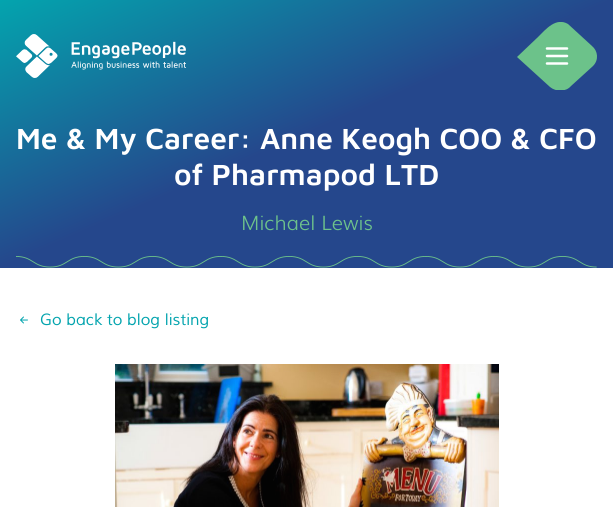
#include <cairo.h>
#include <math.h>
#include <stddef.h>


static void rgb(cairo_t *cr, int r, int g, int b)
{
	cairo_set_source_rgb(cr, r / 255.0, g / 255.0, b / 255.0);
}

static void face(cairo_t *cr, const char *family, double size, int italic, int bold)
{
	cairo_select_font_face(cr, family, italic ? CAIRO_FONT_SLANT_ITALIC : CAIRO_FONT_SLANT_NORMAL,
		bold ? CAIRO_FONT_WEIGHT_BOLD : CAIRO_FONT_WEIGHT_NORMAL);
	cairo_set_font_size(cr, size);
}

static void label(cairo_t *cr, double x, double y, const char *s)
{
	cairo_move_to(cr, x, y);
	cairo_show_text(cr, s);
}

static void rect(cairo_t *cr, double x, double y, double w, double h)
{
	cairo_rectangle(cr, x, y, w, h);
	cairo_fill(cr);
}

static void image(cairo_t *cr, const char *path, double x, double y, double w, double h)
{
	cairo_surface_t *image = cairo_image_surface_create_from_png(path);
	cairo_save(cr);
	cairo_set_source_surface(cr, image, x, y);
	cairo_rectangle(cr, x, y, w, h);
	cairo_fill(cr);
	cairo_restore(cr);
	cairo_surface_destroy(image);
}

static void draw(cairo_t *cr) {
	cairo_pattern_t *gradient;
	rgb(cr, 255, 255, 255);
	cairo_paint(cr);
	gradient = cairo_pattern_create_linear(208, -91, 405, 359);
	cairo_pattern_add_color_stop_rgba(gradient, 0, 0.012, 0.643, 0.682, 1);
	cairo_pattern_add_color_stop_rgba(gradient, 0.5, 0.145, 0.278, 0.549, 1);
	cairo_pattern_add_color_stop_rgba(gradient, 1, 0.145, 0.278, 0.549, 1);
	cairo_set_source(cr, gradient);
	cairo_pattern_destroy(gradient);
	rect(cr, 0, 0, 613, 268);
	image(cr, "image0.png", 16, 34, 170, 44);
	cairo_save(cr);
	cairo_rectangle(cr, 517, 22, 80, 68);
	cairo_clip(cr);
	rgb(cr, 108, 194, 138);
	cairo_new_path(cr);
	cairo_move_to(cr, 592, 46);
	cairo_line_to(cr, 568, 24);
	cairo_curve_to(cr, 556, 17, 546, 29, 538, 37);
	cairo_line_to(cr, 517, 57);
	cairo_line_to(cr, 550, 87);
	cairo_curve_to(cr, 556, 92, 566, 92, 571, 86);
	cairo_line_to(cr, 593, 66);
	cairo_curve_to(cr, 599, 60, 598, 51, 592, 46);
	cairo_close_path(cr);
	cairo_fill(cr);
	cairo_restore(cr);
	cairo_new_path(cr);
	cairo_move_to(cr, 547, 48.5);
	cairo_line_to(cr, 567, 48.5);
	cairo_move_to(cr, 547, 56);
	cairo_line_to(cr, 567, 56);
	cairo_move_to(cr, 547, 63.5);
	cairo_line_to(cr, 567, 63.5);
	rgb(cr, 255, 255, 255);
	cairo_set_line_width(cr, 2.5);
	cairo_set_line_cap(cr, CAIRO_LINE_CAP_ROUND);
	cairo_set_line_join(cr, CAIRO_LINE_JOIN_ROUND);
	cairo_stroke(cr);
	face(cr, "Maven Pro SemiBold", 30, 0, 0);
	label(cr, 16, 149, "Me & My Career: Anne Keogh COO & CFO");
	label(cr, 174, 185, "of Pharmapod LTD");
	face(cr, "Muli Light", 20, 0, 0);
	rgb(cr, 110, 195, 139);
	label(cr, 241, 230, "Michael Lewis");
	image(cr, "image1.png", 16, 256, 581, 12);
	image(cr, "image2.png", 20, 316, 8, 8);
	face(cr, "Muli", 16, 1, 0);
	rgb(cr, 3, 164, 174);
	label(cr, 40, 325, "Go back to blog listing");
	image(cr, "image3.png", 115, 364, 384, 143);
}

int main(void) {
	cairo_surface_t *surface = cairo_image_surface_create(CAIRO_FORMAT_RGB24, 613, 507);
	cairo_t *cr = cairo_create(surface);
	cairo_font_options_t *options = cairo_font_options_create();
	cairo_font_options_set_hint_metrics(options, CAIRO_HINT_METRICS_OFF);
	cairo_font_options_set_hint_style(options, CAIRO_HINT_STYLE_NONE);
	cairo_set_font_options(cr, options);
	cairo_set_miter_limit(cr, 4);
	draw(cr);
	cairo_surface_write_to_png(surface, "render.png");
	cairo_font_options_destroy(options);
	cairo_destroy(cr);
	cairo_surface_destroy(surface);
	return 0;
}
